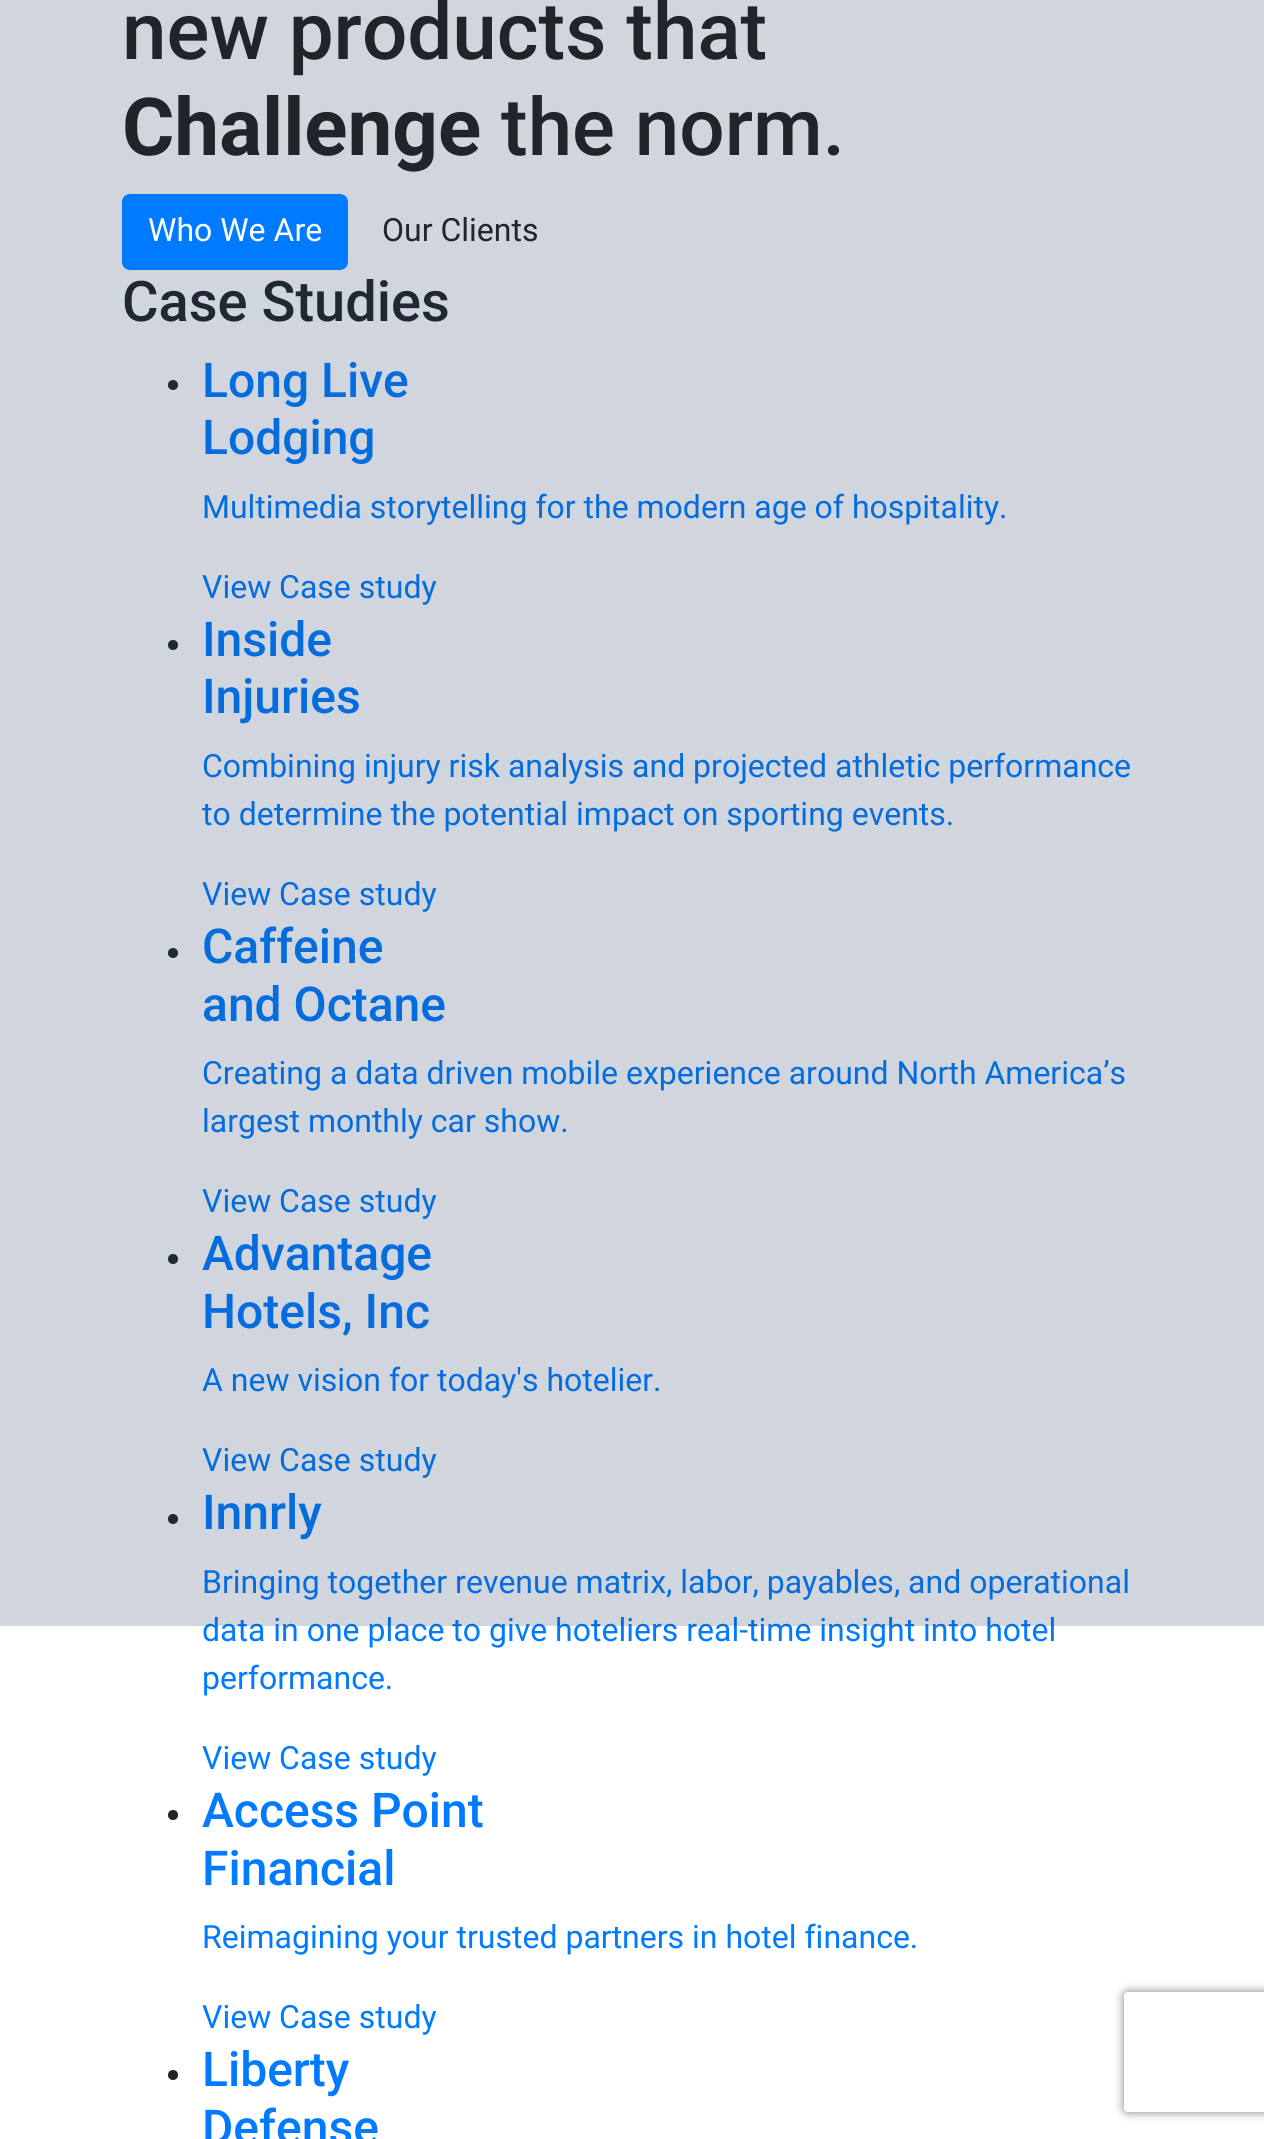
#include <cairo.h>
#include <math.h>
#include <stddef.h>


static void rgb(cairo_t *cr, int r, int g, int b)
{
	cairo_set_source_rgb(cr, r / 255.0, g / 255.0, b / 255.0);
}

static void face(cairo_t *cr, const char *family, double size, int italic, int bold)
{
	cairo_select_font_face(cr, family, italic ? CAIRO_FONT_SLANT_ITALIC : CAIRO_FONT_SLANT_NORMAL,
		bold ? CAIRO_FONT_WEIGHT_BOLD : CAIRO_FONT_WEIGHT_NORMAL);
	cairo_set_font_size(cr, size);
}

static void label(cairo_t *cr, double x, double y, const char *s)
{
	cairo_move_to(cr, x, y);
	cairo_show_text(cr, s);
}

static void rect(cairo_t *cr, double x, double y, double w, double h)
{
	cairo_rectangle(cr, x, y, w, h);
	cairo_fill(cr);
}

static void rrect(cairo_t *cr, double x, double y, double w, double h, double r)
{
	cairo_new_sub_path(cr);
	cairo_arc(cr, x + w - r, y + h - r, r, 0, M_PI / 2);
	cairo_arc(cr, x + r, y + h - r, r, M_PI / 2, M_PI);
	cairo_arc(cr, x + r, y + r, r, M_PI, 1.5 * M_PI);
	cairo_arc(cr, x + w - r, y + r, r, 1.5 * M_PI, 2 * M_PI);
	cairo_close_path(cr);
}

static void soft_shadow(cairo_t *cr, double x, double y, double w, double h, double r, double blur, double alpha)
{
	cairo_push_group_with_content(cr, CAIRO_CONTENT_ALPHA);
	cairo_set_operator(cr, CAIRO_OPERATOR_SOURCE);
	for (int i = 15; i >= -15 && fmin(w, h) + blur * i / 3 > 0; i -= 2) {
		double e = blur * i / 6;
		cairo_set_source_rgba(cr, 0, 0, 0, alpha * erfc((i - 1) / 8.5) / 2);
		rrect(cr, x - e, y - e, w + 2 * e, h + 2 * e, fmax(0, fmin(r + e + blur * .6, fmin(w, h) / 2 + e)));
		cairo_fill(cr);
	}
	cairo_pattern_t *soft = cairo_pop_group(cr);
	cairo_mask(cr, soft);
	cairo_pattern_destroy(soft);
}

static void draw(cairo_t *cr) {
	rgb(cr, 255, 255, 255);
	cairo_paint(cr);
	face(cr, "Roboto Medium", 56, 0, 0);
	rgb(cr, 33, 37, 41);
	label(cr, 122, 321, "Case Studies");
	cairo_new_path(cr);
	cairo_arc(cr, 173, 385, 5, 0, 2 * M_PI);
	cairo_fill(cr);
	face(cr, "Roboto Medium", 48, 0, 0);
	rgb(cr, 0, 123, 255);
	label(cr, 202, 397, "Long Live");
	label(cr, 202, 454, "Lodging");
	face(cr, "Roboto", 32, 0, 0);
	label(cr, 202, 518, "Multimedia storytelling for the modern age of hospitality.");
	label(cr, 202, 598, "View Case study");
	rgb(cr, 33, 37, 41);
	cairo_new_path(cr);
	cairo_arc(cr, 173, 645, 5, 0, 2 * M_PI);
	cairo_fill(cr);
	face(cr, "Roboto Medium", 48, 0, 0);
	rgb(cr, 0, 123, 255);
	label(cr, 202, 656, "Inside");
	label(cr, 202, 713, "Injuries");
	face(cr, "Roboto", 32, 0, 0);
	label(cr, 202, 777, "Combining injury risk analysis and projected athletic performance");
	label(cr, 202, 825, "to determine the potential impact on sporting events.");
	label(cr, 202, 905, "View Case study");
	rgb(cr, 33, 37, 41);
	cairo_new_path(cr);
	cairo_arc(cr, 173, 953, 5, 0, 2 * M_PI);
	cairo_fill(cr);
	face(cr, "Roboto Medium", 48, 0, 0);
	rgb(cr, 0, 123, 255);
	label(cr, 202, 963, "Caffeine");
	label(cr, 202, 1021, "and Octane");
	face(cr, "Roboto", 32, 0, 0);
	label(cr, 202, 1084, "Creating a data driven mobile experience around North America’s");
	label(cr, 202, 1132, "largest monthly car show.");
	label(cr, 202, 1212, "View Case study");
	rgb(cr, 33, 37, 41);
	cairo_new_path(cr);
	cairo_arc(cr, 173, 1259, 5, 0, 2 * M_PI);
	cairo_fill(cr);
	face(cr, "Roboto Medium", 48, 0, 0);
	rgb(cr, 0, 123, 255);
	label(cr, 202, 1270, "Advantage");
	label(cr, 202, 1328, "Hotels, Inc");
	face(cr, "Roboto", 32, 0, 0);
	label(cr, 202, 1391, "A new vision for today's hotelier.");
	label(cr, 202, 1471, "View Case study");
	rgb(cr, 33, 37, 41);
	cairo_new_path(cr);
	cairo_arc(cr, 173, 1519, 5, 0, 2 * M_PI);
	cairo_fill(cr);
	face(cr, "Roboto Medium", 48, 0, 0);
	rgb(cr, 0, 123, 255);
	label(cr, 202, 1529, "Innrly");
	face(cr, "Roboto", 32, 0, 0);
	label(cr, 202, 1593, "Bringing together revenue matrix, labor, payables, and operational");
	label(cr, 202, 1641, "data in one place to give hoteliers real-time insight into hotel");
	cairo_set_source_rgba(cr, 0.106, 0.208, 0.369, 0.2);
	rect(cr, 0, 0, 1264, 1626);
	face(cr, "Roboto Medium", 80, 0, 0);
	rgb(cr, 33, 37, 41);
	label(cr, 122, 59, "new products that");
	face(cr, "Roboto", 80, 0, 1);
	label(cr, 122, 155, "Challenge");
	face(cr, "Roboto Medium", 80, 0, 0);
	label(cr, 501, 155, "the norm.");
	rgb(cr, 0, 123, 255);
	rrect(cr, 123, 195, 224, 74, 7);
	cairo_fill_preserve(cr);
	cairo_stroke(cr);
	face(cr, "Roboto", 32, 0, 0);
	rgb(cr, 255, 255, 255);
	label(cr, 148, 241, "Who We Are");
	rgb(cr, 33, 37, 41);
	label(cr, 382, 241, "Our Clients");
	rgb(cr, 0, 123, 255);
	label(cr, 202, 1689, "performance.");
	label(cr, 202, 1769, "View Case study");
	rgb(cr, 33, 37, 41);
	cairo_new_path(cr);
	cairo_arc(cr, 173, 1815, 5, 0, 2 * M_PI);
	cairo_fill(cr);
	face(cr, "Roboto Medium", 48, 0, 0);
	rgb(cr, 0, 123, 255);
	label(cr, 202, 1827, "Access Point");
	label(cr, 202, 1885, "Financial");
	face(cr, "Roboto", 32, 0, 0);
	label(cr, 202, 1948, "Reimagining your trusted partners in hotel finance.");
	label(cr, 202, 2028, "View Case study");
	rgb(cr, 33, 37, 41);
	cairo_new_path(cr);
	cairo_arc(cr, 173, 2075, 5, 0, 2 * M_PI);
	cairo_fill(cr);
	face(cr, "Roboto Medium", 48, 0, 0);
	rgb(cr, 0, 123, 255);
	label(cr, 202, 2086, "Liberty");
	label(cr, 202, 2144, "Defense");
	cairo_save(cr);
	cairo_set_fill_rule(cr, CAIRO_FILL_RULE_EVEN_ODD);
	cairo_new_path(cr);
	cairo_move_to(cr, 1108, 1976);
	cairo_line_to(cr, 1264, 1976);
	cairo_line_to(cr, 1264, 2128);
	cairo_line_to(cr, 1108, 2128);
	cairo_close_path(cr);
	cairo_move_to(cr, 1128, 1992);
	cairo_line_to(cr, 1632, 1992);
	cairo_curve_to(cr, 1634, 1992, 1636, 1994, 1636, 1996);
	cairo_line_to(cr, 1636, 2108);
	cairo_curve_to(cr, 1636, 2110, 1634, 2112, 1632, 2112);
	cairo_line_to(cr, 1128, 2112);
	cairo_curve_to(cr, 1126, 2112, 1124, 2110, 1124, 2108);
	cairo_line_to(cr, 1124, 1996);
	cairo_curve_to(cr, 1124, 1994, 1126, 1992, 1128, 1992);
	cairo_close_path(cr);
	cairo_clip(cr);
	rgb(cr, 128, 128, 128);
	soft_shadow(cr, 1124, 1992, 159, 120, 4, 5, 1);
	cairo_restore(cr);
}

int main(void) {
	cairo_surface_t *surface = cairo_image_surface_create(CAIRO_FORMAT_RGB24, 1264, 2139);
	cairo_t *cr = cairo_create(surface);
	cairo_font_options_t *options = cairo_font_options_create();
	cairo_font_options_set_hint_metrics(options, CAIRO_HINT_METRICS_OFF);
	cairo_font_options_set_hint_style(options, CAIRO_HINT_STYLE_NONE);
	cairo_set_font_options(cr, options);
	cairo_set_miter_limit(cr, 4);
	draw(cr);
	cairo_surface_write_to_png(surface, "render.png");
	cairo_font_options_destroy(options);
	cairo_destroy(cr);
	cairo_surface_destroy(surface);
	return 0;
}
